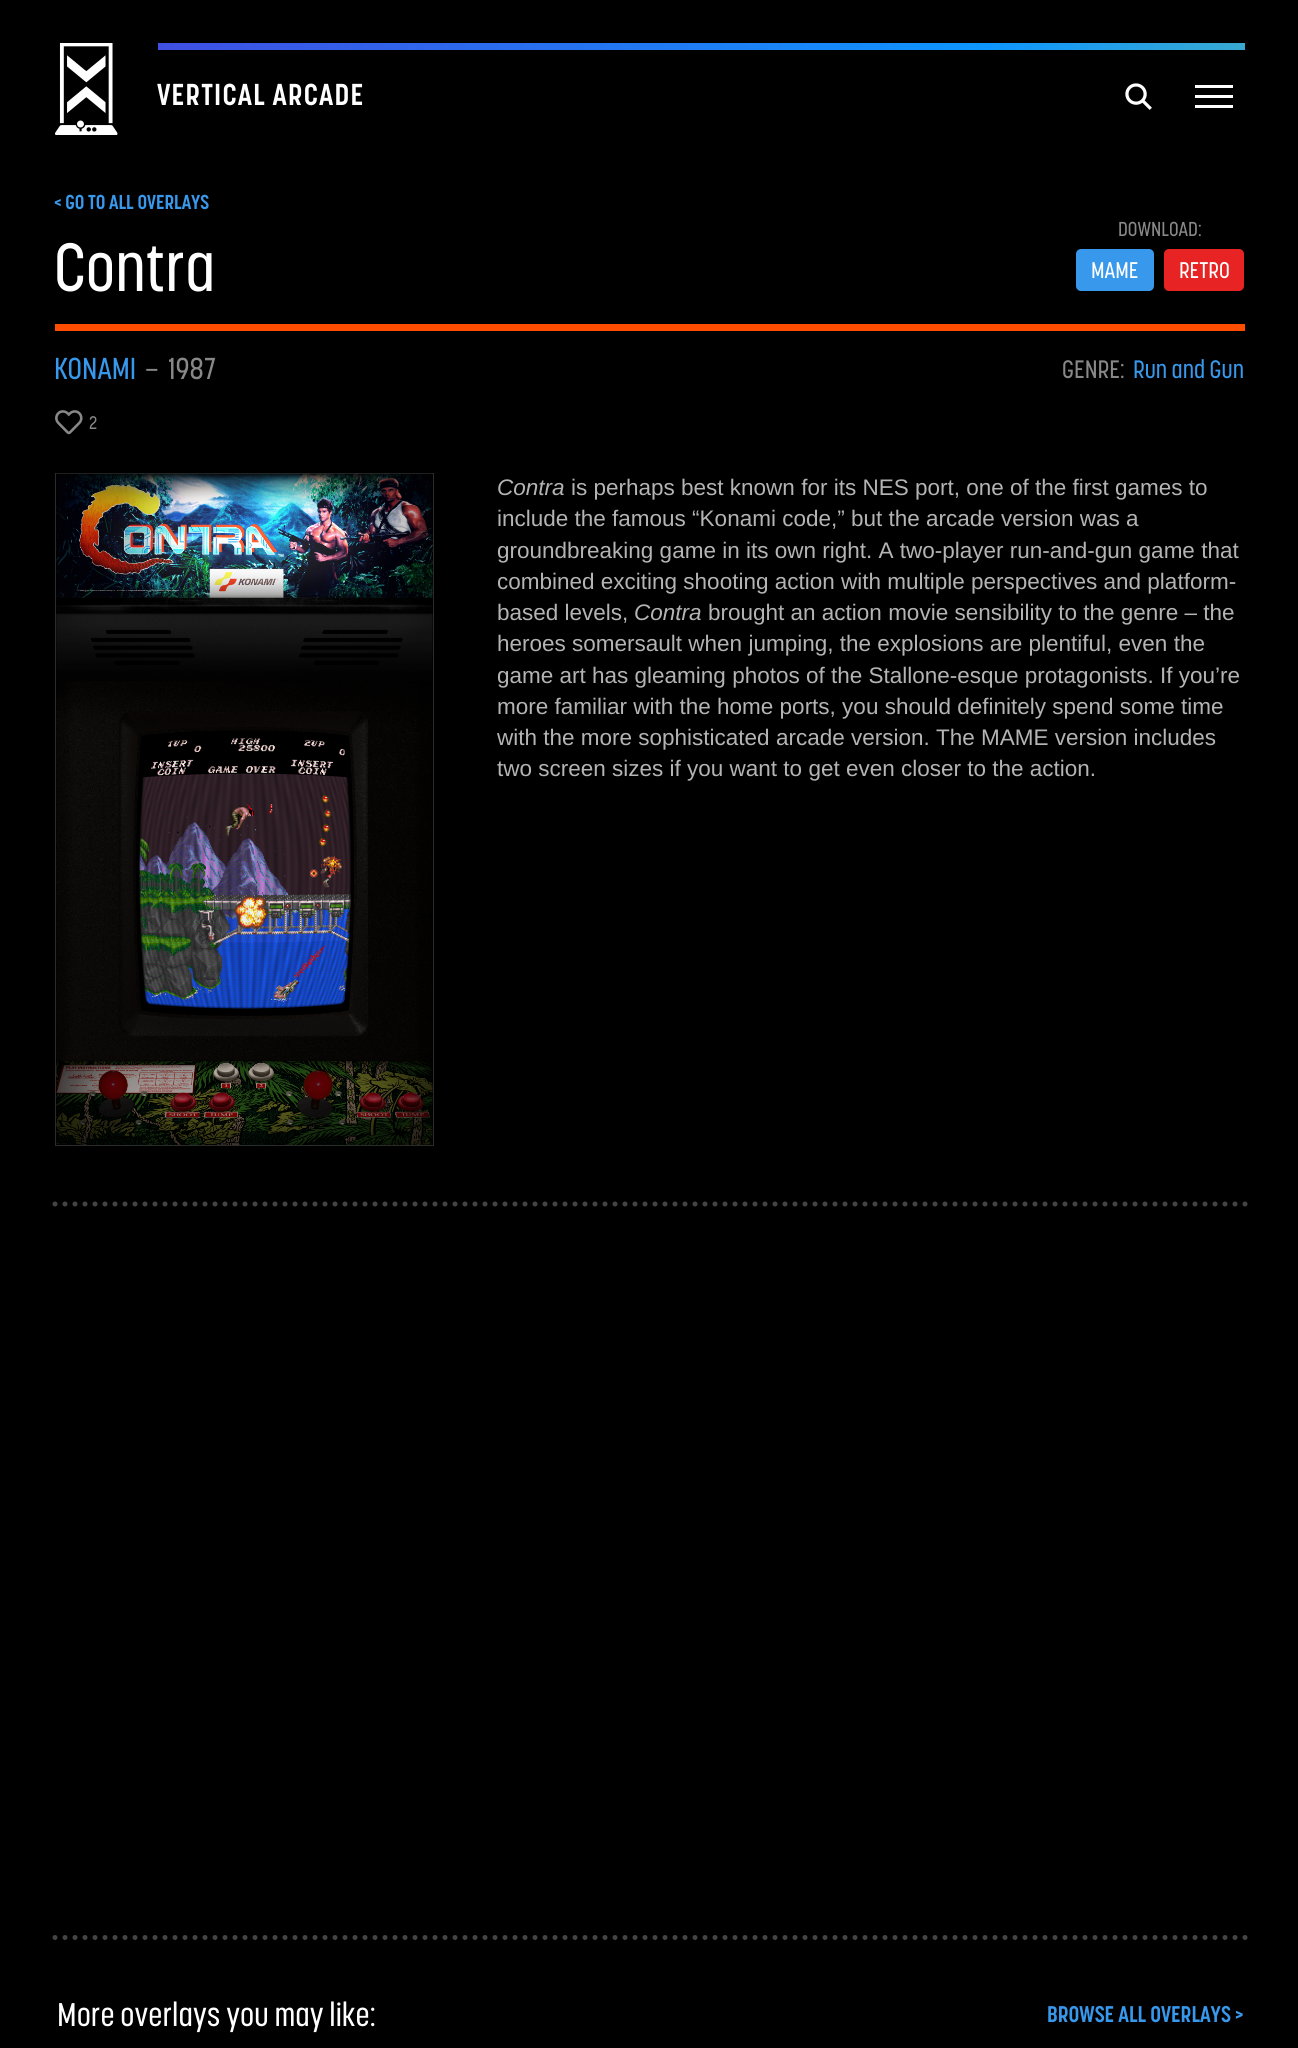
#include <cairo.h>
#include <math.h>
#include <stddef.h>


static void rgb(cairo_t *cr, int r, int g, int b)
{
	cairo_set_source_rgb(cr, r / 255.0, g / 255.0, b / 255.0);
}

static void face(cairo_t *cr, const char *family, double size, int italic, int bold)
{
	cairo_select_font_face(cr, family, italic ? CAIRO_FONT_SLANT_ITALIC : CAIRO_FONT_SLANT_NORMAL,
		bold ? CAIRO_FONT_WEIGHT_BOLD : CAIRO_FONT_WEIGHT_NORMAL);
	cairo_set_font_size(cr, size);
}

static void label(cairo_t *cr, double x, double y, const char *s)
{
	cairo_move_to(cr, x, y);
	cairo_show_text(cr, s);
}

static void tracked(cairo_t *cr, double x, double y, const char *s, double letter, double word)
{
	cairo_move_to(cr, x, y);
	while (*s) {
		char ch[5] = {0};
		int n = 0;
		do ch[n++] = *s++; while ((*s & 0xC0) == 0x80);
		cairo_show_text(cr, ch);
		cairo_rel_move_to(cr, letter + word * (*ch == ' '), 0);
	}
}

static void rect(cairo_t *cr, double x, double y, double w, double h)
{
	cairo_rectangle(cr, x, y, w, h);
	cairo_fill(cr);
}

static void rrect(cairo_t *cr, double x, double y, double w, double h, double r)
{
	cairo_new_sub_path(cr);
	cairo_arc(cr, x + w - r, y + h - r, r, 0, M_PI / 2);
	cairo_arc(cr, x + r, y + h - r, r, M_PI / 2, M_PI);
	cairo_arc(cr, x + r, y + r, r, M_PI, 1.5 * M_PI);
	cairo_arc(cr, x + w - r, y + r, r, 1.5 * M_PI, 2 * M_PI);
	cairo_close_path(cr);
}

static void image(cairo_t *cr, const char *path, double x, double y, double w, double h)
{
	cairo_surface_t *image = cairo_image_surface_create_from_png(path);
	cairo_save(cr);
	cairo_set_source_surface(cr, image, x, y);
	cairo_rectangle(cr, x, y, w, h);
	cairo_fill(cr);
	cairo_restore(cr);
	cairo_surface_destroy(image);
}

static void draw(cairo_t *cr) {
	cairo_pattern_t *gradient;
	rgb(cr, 0, 0, 0);
	cairo_paint(cr);
	image(cr, "image0.png", 55, 43, 63, 92);
	gradient = cairo_pattern_create_linear(-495, 46, 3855, 46);
	cairo_pattern_add_color_stop_rgba(gradient, 0, 0.404, 0.09, 0.804, 1);
	cairo_pattern_add_color_stop_rgba(gradient, 0.34, 0.051, 0.588, 1, 1);
	cairo_pattern_add_color_stop_rgba(gradient, 0.67, 0.988, 1, 0, 1);
	cairo_pattern_add_color_stop_rgba(gradient, 1, 1, 0.098, 0.384, 1);
	cairo_set_source(cr, gradient);
	cairo_pattern_destroy(gradient);
	rect(cr, 158, 43, 1087, 7);
	face(cr, "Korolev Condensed", 30, 0, 1);
	rgb(cr, 255, 255, 255);
	tracked(cr, 157, 105, "VERTICAL ARCADE", 1.25, 0);
	image(cr, "image1.png", 1125, 83, 27, 27);
	rect(cr, 1195, 85, 38, 3);
	rect(cr, 1195, 95, 38, 3);
	rect(cr, 1195, 105, 38, 3);
	face(cr, "Korolev Condensed", 20, 0, 1);
	rgb(cr, 56, 152, 236);
	label(cr, 54, 209, "< GO TO ALL OVERLAYS");
	face(cr, "Korolev Condensed Medium", 67.5, 0, 0);
	rgb(cr, 255, 255, 255);
	label(cr, 54, 291, "Contra");
	face(cr, "Korolev Condensed Medium", 20, 0, 0);
	rgb(cr, 136, 136, 136);
	label(cr, 1118, 236, "DOWNLOAD:");
	rgb(cr, 56, 152, 236);
	rrect(cr, 1076, 249, 78, 42, 5);
	cairo_fill(cr);
	face(cr, "Korolev Condensed Medium", 22.5, 0, 0);
	rgb(cr, 255, 255, 255);
	label(cr, 1091, 278, "MAME");
	rgb(cr, 231, 35, 35);
	rrect(cr, 1164, 249, 80, 42, 5);
	cairo_fill(cr);
	rgb(cr, 255, 255, 255);
	label(cr, 1179, 278, "RETRO");
	rgb(cr, 255, 77, 0);
	rect(cr, 55, 324, 1190, 7);
	face(cr, "Korolev Condensed Medium", 30, 0, 0);
	rgb(cr, 56, 152, 236);
	label(cr, 54, 379, "KONAMI");
	rgb(cr, 136, 136, 136);
	label(cr, 145, 379, "–");
	label(cr, 168, 379, "1987");
	face(cr, "Korolev Condensed Medium", 25, 0, 0);
	label(cr, 1062, 378, "GENRE:");
	rgb(cr, 56, 152, 236);
	label(cr, 1133, 378, "Run and Gun");
	image(cr, "image2.png", 55, 410, 28, 25);
	face(cr, "Korolev Condensed Medium", 18, 0, 0);
	rgb(cr, 136, 136, 136);
	label(cr, 89, 429, "2");
	cairo_rectangle(cr, 55.5, 473.5, 378, 672);
	rgb(cr, 43, 43, 43);
	cairo_set_line_width(cr, 1);
	cairo_stroke(cr);
	image(cr, "image3.png", 56, 473, 377, 672);
	face(cr, "Liberation Sans", 22.5, 1, 0);
	rgb(cr, 180, 180, 180);
	label(cr, 497, 495, "Contra");
	face(cr, "Liberation Sans", 22.5, 0, 0);
	label(cr, 571, 495, "is perhaps best known for its NES port, one of the first games to");
	label(cr, 497, 526, "include the famous “Konami code,” but the arcade version was a");
	label(cr, 497, 558, "groundbreaking game in its own right. A two-player run-and-gun game that");
	label(cr, 497, 589, "combined exciting shooting action with multiple perspectives and platform-");
	label(cr, 497, 620, "based levels,");
	face(cr, "Liberation Sans", 22.5, 1, 0);
	label(cr, 634, 620, "Contra");
	face(cr, "Liberation Sans", 22.5, 0, 0);
	label(cr, 708, 620, "brought an action movie sensibility to the genre – the");
	label(cr, 497, 651, "heroes somersault when jumping, the explosions are plentiful, even the");
	label(cr, 497, 683, "game art has gleaming photos of the Stallone-esque protagonists. If you’re");
	label(cr, 497, 714, "more familiar with the home ports, you should definitely spend some time");
	label(cr, 497, 745, "with the more sophisticated arcade version. The MAME version includes");
	label(cr, 497, 776, "two screen sizes if you want to get even closer to the action.");
	cairo_new_path(cr);
	cairo_move_to(cr, 55, 1204);
	cairo_line_to(cr, 1245, 1204);
	rgb(cr, 68, 68, 68);
	cairo_set_line_width(cr, 5);
	cairo_set_line_cap(cr, CAIRO_LINE_CAP_ROUND);
	cairo_set_dash(cr, (double[]){0, 10}, 2, 0);
	cairo_stroke(cr);
	cairo_new_path(cr);
	cairo_move_to(cr, 55, 1937.5);
	cairo_line_to(cr, 1245, 1937.5);
	cairo_stroke(cr);
	face(cr, "Korolev Condensed Medium", 32.5, 0, 0);
	rgb(cr, 255, 255, 255);
	label(cr, 57, 2026, "More overlays you may like:");
	face(cr, "Korolev Condensed", 22.5, 0, 1);
	rgb(cr, 56, 152, 236);
	label(cr, 1047, 2022, "BROWSE ALL OVERLAYS >");
}

int main(void) {
	cairo_surface_t *surface = cairo_image_surface_create(CAIRO_FORMAT_RGB24, 1298, 2048);
	cairo_t *cr = cairo_create(surface);
	cairo_font_options_t *options = cairo_font_options_create();
	cairo_font_options_set_hint_metrics(options, CAIRO_HINT_METRICS_OFF);
	cairo_font_options_set_hint_style(options, CAIRO_HINT_STYLE_NONE);
	cairo_set_font_options(cr, options);
	cairo_set_miter_limit(cr, 4);
	draw(cr);
	cairo_surface_write_to_png(surface, "render.png");
	cairo_font_options_destroy(options);
	cairo_destroy(cr);
	cairo_surface_destroy(surface);
	return 0;
}
